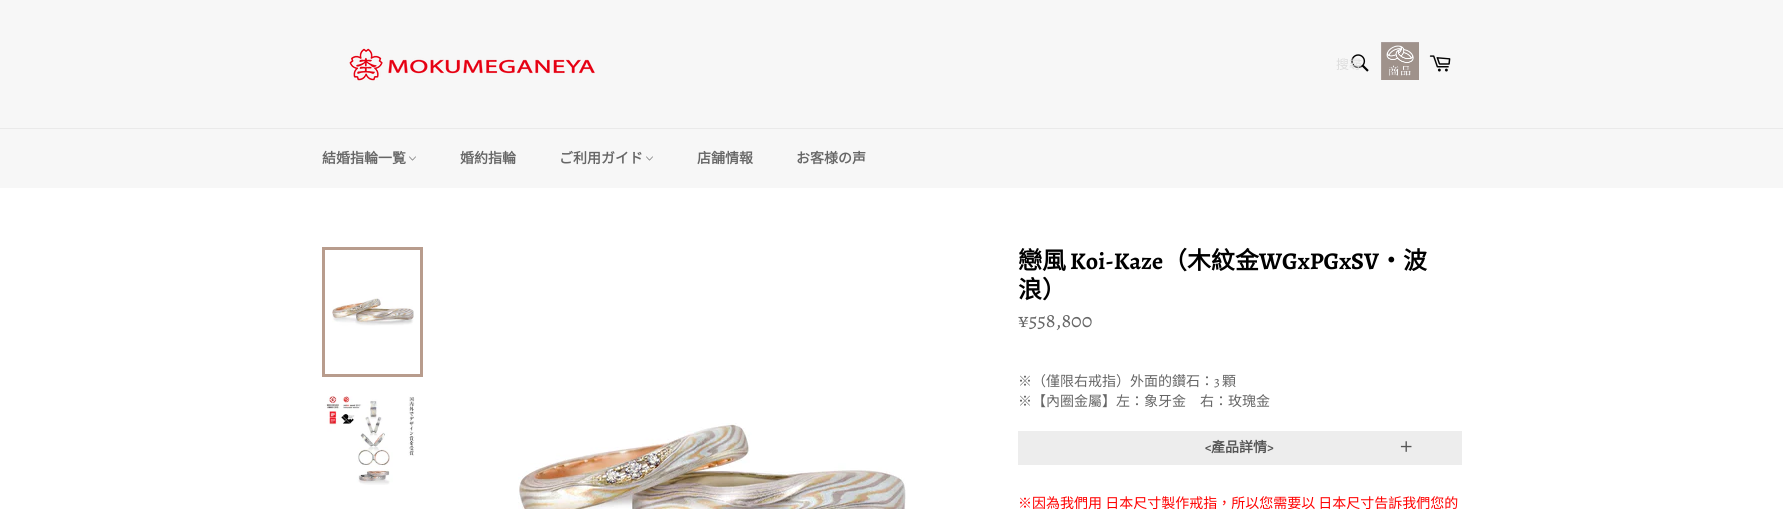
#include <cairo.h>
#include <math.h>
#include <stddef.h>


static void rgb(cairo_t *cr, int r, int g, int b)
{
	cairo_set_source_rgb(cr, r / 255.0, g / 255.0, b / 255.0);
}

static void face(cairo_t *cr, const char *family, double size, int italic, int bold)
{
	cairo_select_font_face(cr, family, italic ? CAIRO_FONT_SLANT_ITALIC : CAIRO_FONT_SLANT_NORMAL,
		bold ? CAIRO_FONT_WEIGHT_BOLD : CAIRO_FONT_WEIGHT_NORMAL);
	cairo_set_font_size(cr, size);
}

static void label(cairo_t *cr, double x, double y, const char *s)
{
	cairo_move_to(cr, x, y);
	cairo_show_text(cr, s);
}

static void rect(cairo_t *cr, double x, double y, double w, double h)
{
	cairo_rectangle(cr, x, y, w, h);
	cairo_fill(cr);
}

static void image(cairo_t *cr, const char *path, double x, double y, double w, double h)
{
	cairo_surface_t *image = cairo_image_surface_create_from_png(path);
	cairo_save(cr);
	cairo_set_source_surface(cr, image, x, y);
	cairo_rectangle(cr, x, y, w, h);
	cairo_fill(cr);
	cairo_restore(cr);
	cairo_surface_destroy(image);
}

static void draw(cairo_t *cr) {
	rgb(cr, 255, 255, 255);
	cairo_paint(cr);
	rgb(cr, 247, 247, 247);
	rect(cr, 0, 0, 1783, 128);
	image(cr, "image0.png", 349, 48, 246, 33);
	image(cr, "image1.png", 1351, 54, 18, 18);
	face(cr, "Noto Sans CJK TC", 13, 0, 0);
	rgb(cr, 221, 221, 221);
	label(cr, 1336, 69, "搜尋");
	image(cr, "image2.png", 1381, 42, 38, 38);
	image(cr, "image3.png", 1429, 55, 22, 17);
	rgb(cr, 247, 247, 247);
	rect(cr, 0, 129, 1783, 59);
	rgb(cr, 234, 234, 234);
	rect(cr, 0, 128, 1783, 1);
	face(cr, "Noto Sans CJK TC", 14, 0, 1);
	rgb(cr, 102, 102, 102);
	label(cr, 322, 163, "結婚指輪一覧");
	image(cr, "image4.png", 409, 156, 7, 5);
	label(cr, 460, 163, "婚約指輪");
	label(cr, 559, 163, "ご利用ガイド");
	image(cr, "image4.png", 646, 156, 7, 5);
	label(cr, 697, 163, "店舗情報");
	label(cr, 796, 163, "お客様の声");
	image(cr, "image5.png", 332, 297, 82, 29);
	cairo_rectangle(cr, 323.5, 248.5, 98, 127);
	rgb(cr, 184, 156, 141);
	cairo_set_line_width(cr, 3);
	cairo_stroke(cr);
	image(cr, "image6.png", 325, 396, 90, 89);
	image(cr, "image7.png", 518, 423, 388, 86);
	face(cr, "Noto Sans CJK TC", 24, 0, 1);
	rgb(cr, 0, 0, 0);
	label(cr, 1018, 269, "戀風");
	face(cr, "Alegreya", 24, 0, 1);
	label(cr, 1070, 269, "Koi-Kaze");
	face(cr, "Noto Sans CJK TC", 24, 0, 1);
	label(cr, 1163, 269, "（木紋金");
	face(cr, "Alegreya", 24, 0, 1);
	label(cr, 1259, 269, "WGxPGxSV");
	face(cr, "Noto Sans CJK TC", 24, 0, 1);
	label(cr, 1379, 269, "・波");
	label(cr, 1018, 298, "浪）");
	face(cr, "Alegreya", 20, 0, 0);
	rgb(cr, 102, 102, 102);
	label(cr, 1018, 327, "¥558,800");
	face(cr, "Noto Sans CJK TC", 14, 0, 0);
	label(cr, 1018, 386, "※（僅限右戒指）外面的鑽石：");
	face(cr, "Alegreya", 14, 0, 0);
	label(cr, 1214, 386, "3");
	face(cr, "Noto Sans CJK TC", 14, 0, 0);
	label(cr, 1222, 386, "顆");
	label(cr, 1018, 406, "※【內圈金屬】左：象牙金　右：玫瑰金");
	rgb(cr, 237, 237, 237);
	rect(cr, 1018, 431, 444, 34);
	face(cr, "Alegreya", 14, 0, 1);
	rgb(cr, 85, 85, 85);
	label(cr, 1205, 452, "<");
	face(cr, "Noto Sans CJK TC", 14, 0, 1);
	label(cr, 1211, 452, "產品詳情");
	face(cr, "Alegreya", 14, 0, 1);
	label(cr, 1267, 452, ">");
	face(cr, "Noto Sans CJK TC", 14, 0, 1);
	label(cr, 1399, 452, "＋");
	face(cr, "Noto Sans CJK TC", 14, 0, 0);
	rgb(cr, 255, 0, 0);
	label(cr, 1018, 508, "※因為我們用 日本尺寸製作戒指，所以您需要以 日本尺寸告訴我們您的");
}

int main(void) {
	cairo_surface_t *surface = cairo_image_surface_create(CAIRO_FORMAT_RGB24, 1783, 509);
	cairo_t *cr = cairo_create(surface);
	cairo_font_options_t *options = cairo_font_options_create();
	cairo_font_options_set_hint_metrics(options, CAIRO_HINT_METRICS_OFF);
	cairo_font_options_set_hint_style(options, CAIRO_HINT_STYLE_NONE);
	cairo_set_font_options(cr, options);
	cairo_set_miter_limit(cr, 4);
	draw(cr);
	cairo_surface_write_to_png(surface, "render.png");
	cairo_font_options_destroy(options);
	cairo_destroy(cr);
	cairo_surface_destroy(surface);
	return 0;
}
